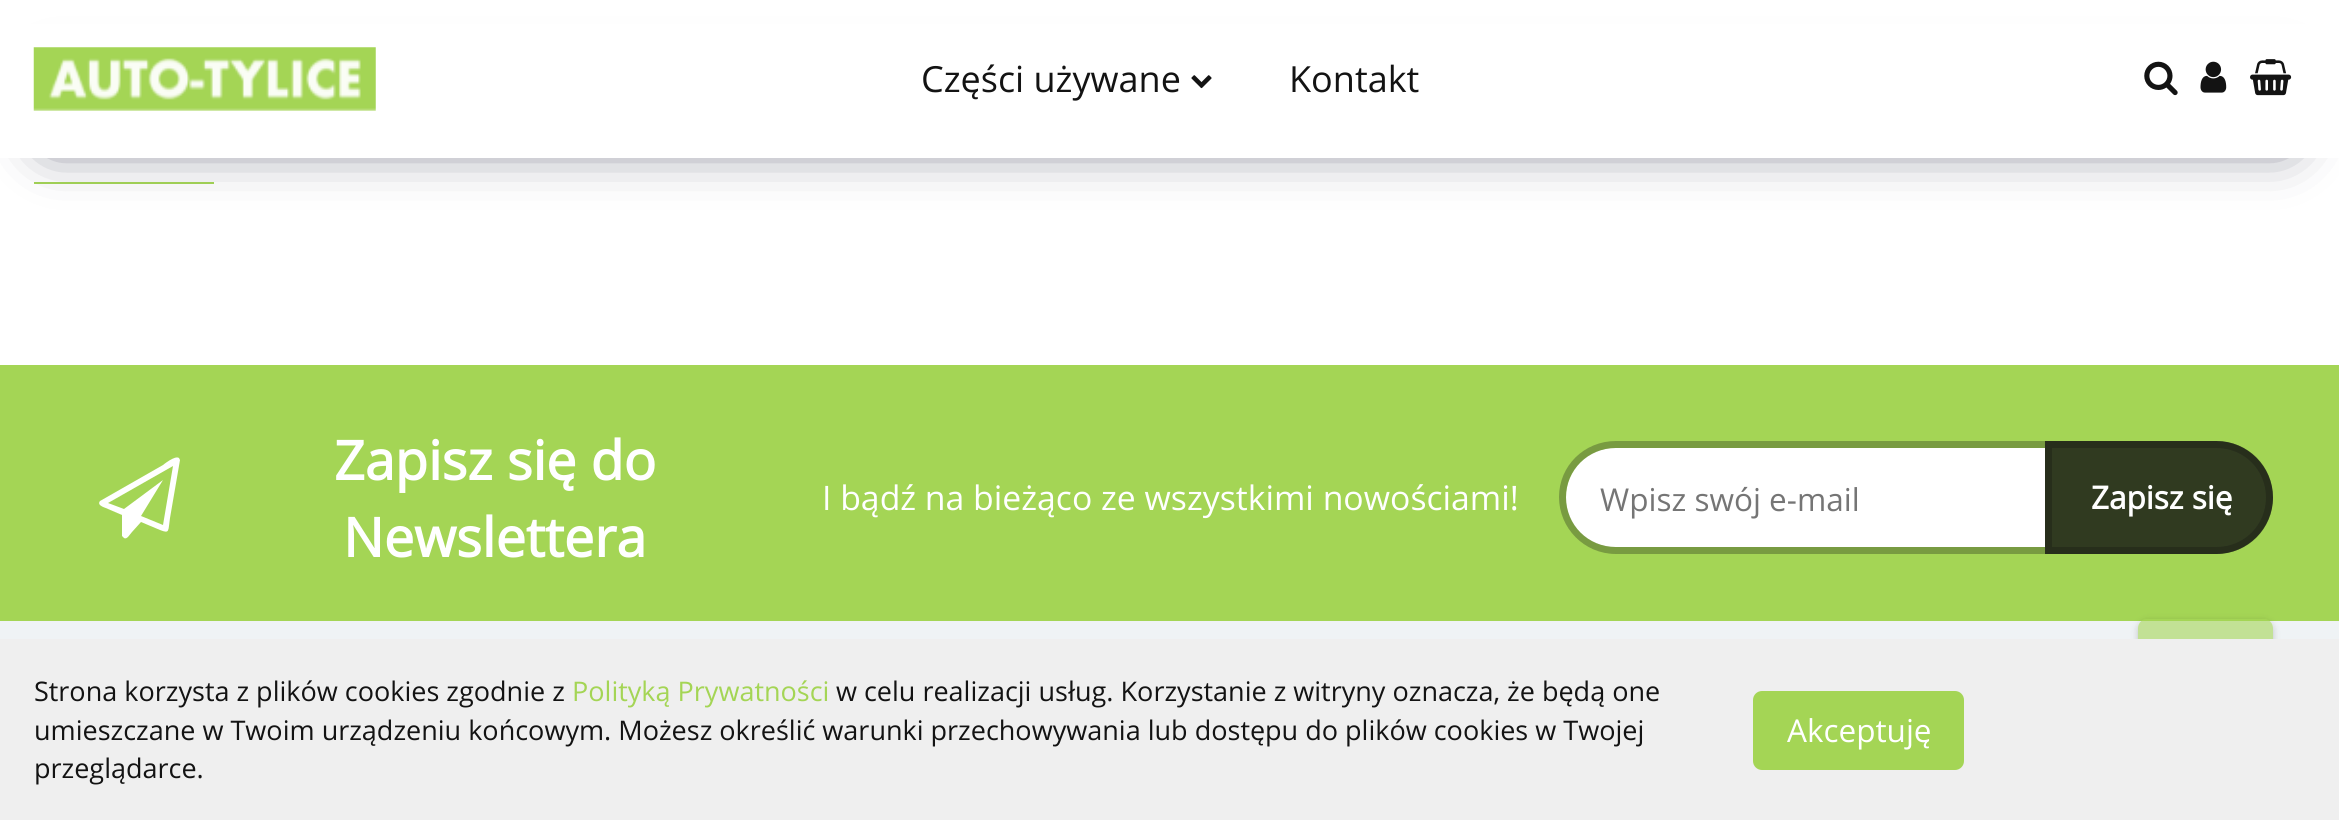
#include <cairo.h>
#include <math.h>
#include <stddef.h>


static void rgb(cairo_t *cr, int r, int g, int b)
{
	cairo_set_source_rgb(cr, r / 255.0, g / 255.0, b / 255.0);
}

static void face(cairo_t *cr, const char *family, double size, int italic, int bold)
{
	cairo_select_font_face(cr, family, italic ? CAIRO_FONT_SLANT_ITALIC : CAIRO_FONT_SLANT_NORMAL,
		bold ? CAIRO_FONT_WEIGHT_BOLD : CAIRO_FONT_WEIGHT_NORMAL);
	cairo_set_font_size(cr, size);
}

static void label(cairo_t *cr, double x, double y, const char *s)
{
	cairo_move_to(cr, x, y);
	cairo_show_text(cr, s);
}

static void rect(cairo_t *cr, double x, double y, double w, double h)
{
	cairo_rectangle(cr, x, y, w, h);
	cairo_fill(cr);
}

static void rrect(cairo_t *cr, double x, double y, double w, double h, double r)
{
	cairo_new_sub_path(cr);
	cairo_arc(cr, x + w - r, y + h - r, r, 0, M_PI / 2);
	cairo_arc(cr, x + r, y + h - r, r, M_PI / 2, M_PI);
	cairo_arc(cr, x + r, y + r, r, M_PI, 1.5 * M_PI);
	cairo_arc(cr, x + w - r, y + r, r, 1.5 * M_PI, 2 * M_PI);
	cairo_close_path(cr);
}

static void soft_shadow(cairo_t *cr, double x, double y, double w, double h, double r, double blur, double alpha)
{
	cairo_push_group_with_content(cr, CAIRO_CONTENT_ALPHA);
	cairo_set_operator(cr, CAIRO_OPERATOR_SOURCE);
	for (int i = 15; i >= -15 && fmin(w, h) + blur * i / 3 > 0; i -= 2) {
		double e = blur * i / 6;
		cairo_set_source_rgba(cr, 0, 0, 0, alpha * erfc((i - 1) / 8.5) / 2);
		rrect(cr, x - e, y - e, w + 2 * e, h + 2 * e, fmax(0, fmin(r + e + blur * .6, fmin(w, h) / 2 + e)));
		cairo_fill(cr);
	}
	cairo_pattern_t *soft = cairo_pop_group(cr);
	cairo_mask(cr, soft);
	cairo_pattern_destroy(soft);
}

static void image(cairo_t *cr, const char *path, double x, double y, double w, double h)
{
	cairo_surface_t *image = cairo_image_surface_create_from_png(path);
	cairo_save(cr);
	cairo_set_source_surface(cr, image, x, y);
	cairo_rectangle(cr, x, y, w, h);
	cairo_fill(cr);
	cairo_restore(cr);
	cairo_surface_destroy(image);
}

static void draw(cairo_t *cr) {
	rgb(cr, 255, 255, 255);
	cairo_paint(cr);
	rgb(cr, 164, 213, 85);
	rect(cr, 34, 182, 180, 2);
	rgb(cr, 66, 68, 90);
	soft_shadow(cr, 50, 86, 2236, 54, 0, 28, 1);
	rgb(cr, 255, 255, 255);
	rect(cr, 0, 24, 2339, 134);
	image(cr, "image0.png", 33, 47, 343, 64);
	face(cr, "Open Sans", 36, 0, 0);
	rgb(cr, 19, 19, 19);
	label(cr, 921, 92, "Części używane");
	image(cr, "image1.png", 1191, 75, 21, 14);
	label(cr, 1289, 92, "Kontakt");
	image(cr, "image2.png", 2144, 61, 34, 35);
	image(cr, "image3.png", 2200, 61, 27, 32);
	image(cr, "image4.png", 2250, 59, 42, 37);
	rgb(cr, 164, 213, 85);
	rect(cr, 0, 365, 2339, 256);
	rgb(cr, 255, 255, 255);
	cairo_new_path(cr);
	cairo_move_to(cr, 179, 458);
	cairo_curve_to(cr, 175, 455, 163, 465, 163, 465);
	cairo_line_to(cr, 100, 501);
	cairo_curve_to(cr, 96, 506, 107, 508, 108, 509);
	cairo_line_to(cr, 122, 515);
	cairo_line_to(cr, 122, 536);
	cairo_line_to(cr, 124, 538);
	cairo_curve_to(cr, 127, 540, 130, 534, 132, 532);
	cairo_line_to(cr, 141, 522);
	cairo_line_to(cr, 160, 530);
	cairo_curve_to(cr, 170, 534, 168, 531, 170, 518);
	cairo_line_to(cr, 180, 460);
	cairo_close_path(cr);
	cairo_move_to(cr, 163, 525);
	cairo_line_to(cr, 141, 516);
	cairo_line_to(cr, 163, 480);
	cairo_line_to(cr, 124, 509);
	cairo_line_to(cr, 108, 503);
	cairo_line_to(cr, 173, 466);
	cairo_close_path(cr);
	cairo_fill(cr);
	face(cr, "Open Sans", 54, 0, 1);
	label(cr, 334, 480, "Zapisz się do");
	label(cr, 343, 557, "Newslettera");
	face(cr, "Open Sans", 33.75, 0, 0);
	label(cr, 822, 510, "I bądź na bieżąco ze wszystkimi nowościami!");
	cairo_new_path(cr);
	cairo_move_to(cr, 1615.5, 448);
	cairo_line_to(cr, 2045, 448);
	cairo_line_to(cr, 2045, 547);
	cairo_line_to(cr, 1615.5, 547);
	cairo_curve_to(cr, 1588, 547, 1566, 525, 1566, 497.5);
	cairo_curve_to(cr, 1566, 470, 1588, 448, 1615.5, 448);
	cairo_close_path(cr);
	cairo_fill(cr);
	cairo_set_source_rgba(cr, 0.075, 0.075, 0.075, 0.3);
	cairo_set_fill_rule(cr, CAIRO_FILL_RULE_EVEN_ODD);
	cairo_new_path(cr);
	cairo_move_to(cr, 1616, 441);
	cairo_line_to(cr, 2045, 441);
	cairo_line_to(cr, 2045, 554);
	cairo_line_to(cr, 1616, 554);
	cairo_curve_to(cr, 1584, 554, 1559, 528, 1559, 497);
	cairo_curve_to(cr, 1559, 466, 1584, 441, 1616, 441);
	cairo_close_path(cr);
	cairo_move_to(cr, 1616, 448);
	cairo_line_to(cr, 2045, 448);
	cairo_line_to(cr, 2045, 547);
	cairo_line_to(cr, 1616, 547);
	cairo_curve_to(cr, 1588, 547, 1566, 525, 1566, 497);
	cairo_curve_to(cr, 1566, 470, 1588, 448, 1616, 448);
	cairo_close_path(cr);
	cairo_fill(cr);
	face(cr, "Open Sans", 31.5, 0, 0);
	rgb(cr, 117, 117, 117);
	label(cr, 1600, 511, "Wpisz swój e-mail");
	rgb(cr, 48, 58, 32);
	cairo_new_path(cr);
	cairo_move_to(cr, 2045, 441);
	cairo_line_to(cr, 2216.5, 441);
	cairo_curve_to(cr, 2247.5, 441, 2273, 466.5, 2273, 497.5);
	cairo_curve_to(cr, 2273, 528.5, 2247.5, 554, 2216.5, 554);
	cairo_line_to(cr, 2045, 554);
	cairo_close_path(cr);
	cairo_fill(cr);
	cairo_new_path(cr);
	cairo_move_to(cr, 2048.5, 444.5);
	cairo_line_to(cr, 2216.5, 444.5);
	cairo_curve_to(cr, 2246, 444.5, 2269.5, 468, 2269.5, 497.5);
	cairo_curve_to(cr, 2269.5, 527, 2246, 550.5, 2216.5, 550.5);
	cairo_line_to(cr, 2048.5, 550.5);
	cairo_close_path(cr);
	cairo_set_source_rgba(cr, 0.075, 0.075, 0.075, 0.3);
	cairo_set_line_width(cr, 7);
	cairo_stroke(cr);
	face(cr, "Open Sans", 31.5, 0, 1);
	rgb(cr, 255, 255, 255);
	label(cr, 2091, 509, "Zapisz się");
	rgb(cr, 239, 243, 245);
	rect(cr, 0, 621, 2339, 18);
	cairo_save(cr);
	cairo_new_path(cr);
	cairo_move_to(cr, 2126, 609);
	cairo_line_to(cr, 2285, 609);
	cairo_line_to(cr, 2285, 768);
	cairo_line_to(cr, 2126, 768);
	cairo_close_path(cr);
	cairo_move_to(cr, 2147, 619);
	cairo_line_to(cr, 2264, 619);
	cairo_curve_to(cr, 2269, 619, 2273, 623, 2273, 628);
	cairo_line_to(cr, 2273, 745);
	cairo_curve_to(cr, 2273, 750, 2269, 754, 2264, 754);
	cairo_line_to(cr, 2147, 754);
	cairo_curve_to(cr, 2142, 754, 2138, 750, 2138, 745);
	cairo_line_to(cr, 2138, 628);
	cairo_curve_to(cr, 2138, 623, 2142, 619, 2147, 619);
	cairo_close_path(cr);
	cairo_clip(cr);
	rgb(cr, 0, 0, 0);
	soft_shadow(cr, 2138, 621, 135, 135, 9, 3.5, 0.2);
	cairo_restore(cr);
	cairo_set_source_rgba(cr, 0.643, 0.835, 0.333, 0.6);
	rrect(cr, 2138, 619, 135, 135, 9);
	cairo_fill(cr);
	rgb(cr, 239, 239, 239);
	rect(cr, 0, 639, 2339, 181);
	face(cr, "Open Sans", 27, 0, 0);
	rgb(cr, 19, 19, 19);
	label(cr, 34, 701, "Strona korzysta z plików cookies zgodnie z");
	rgb(cr, 164, 213, 85);
	label(cr, 572, 701, "Polityką Prywatności");
	rgb(cr, 19, 19, 19);
	label(cr, 836, 701, "w celu realizacji usług. Korzystanie z witryny oznacza, że będą one");
	label(cr, 34, 740, "umieszczane w Twoim urządzeniu końcowym. Możesz określić warunki przechowywania lub dostępu do plików cookies w Twojej");
	label(cr, 34, 778, "przeglądarce.");
	rgb(cr, 164, 213, 85);
	rrect(cr, 1756.5, 694.5, 204, 72, 5.5);
	cairo_fill_preserve(cr);
	cairo_stroke(cr);
	face(cr, "Open Sans", 31.5, 0, 0);
	rgb(cr, 255, 255, 255);
	label(cr, 1787, 742, "Akceptuję");
}

int main(void) {
	cairo_surface_t *surface = cairo_image_surface_create(CAIRO_FORMAT_RGB24, 2339, 820);
	cairo_t *cr = cairo_create(surface);
	cairo_font_options_t *options = cairo_font_options_create();
	cairo_font_options_set_hint_metrics(options, CAIRO_HINT_METRICS_OFF);
	cairo_font_options_set_hint_style(options, CAIRO_HINT_STYLE_NONE);
	cairo_set_font_options(cr, options);
	cairo_set_miter_limit(cr, 4);
	draw(cr);
	cairo_surface_write_to_png(surface, "render.png");
	cairo_font_options_destroy(options);
	cairo_destroy(cr);
	cairo_surface_destroy(surface);
	return 0;
}
